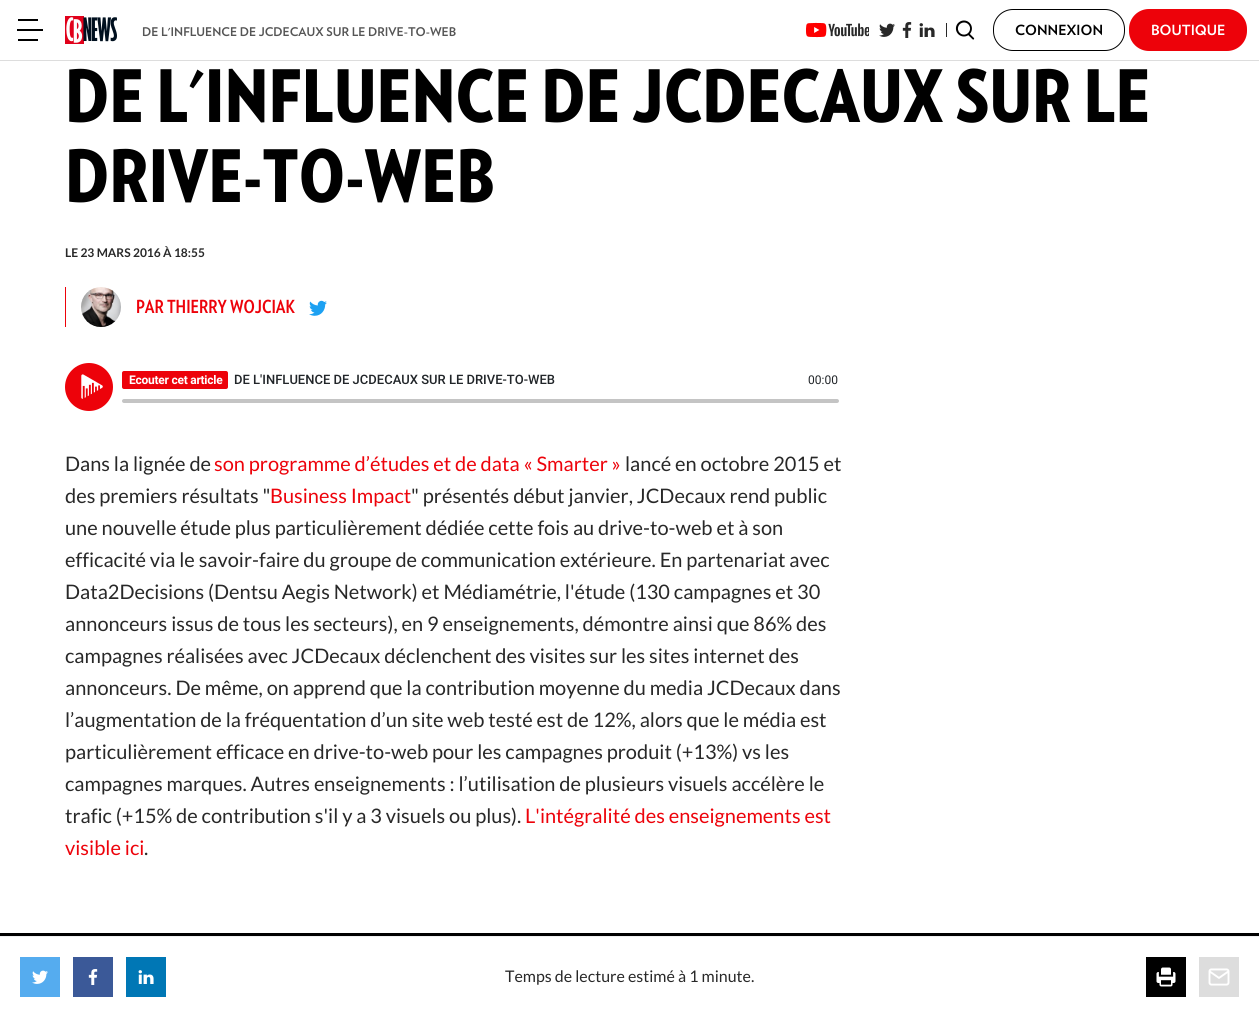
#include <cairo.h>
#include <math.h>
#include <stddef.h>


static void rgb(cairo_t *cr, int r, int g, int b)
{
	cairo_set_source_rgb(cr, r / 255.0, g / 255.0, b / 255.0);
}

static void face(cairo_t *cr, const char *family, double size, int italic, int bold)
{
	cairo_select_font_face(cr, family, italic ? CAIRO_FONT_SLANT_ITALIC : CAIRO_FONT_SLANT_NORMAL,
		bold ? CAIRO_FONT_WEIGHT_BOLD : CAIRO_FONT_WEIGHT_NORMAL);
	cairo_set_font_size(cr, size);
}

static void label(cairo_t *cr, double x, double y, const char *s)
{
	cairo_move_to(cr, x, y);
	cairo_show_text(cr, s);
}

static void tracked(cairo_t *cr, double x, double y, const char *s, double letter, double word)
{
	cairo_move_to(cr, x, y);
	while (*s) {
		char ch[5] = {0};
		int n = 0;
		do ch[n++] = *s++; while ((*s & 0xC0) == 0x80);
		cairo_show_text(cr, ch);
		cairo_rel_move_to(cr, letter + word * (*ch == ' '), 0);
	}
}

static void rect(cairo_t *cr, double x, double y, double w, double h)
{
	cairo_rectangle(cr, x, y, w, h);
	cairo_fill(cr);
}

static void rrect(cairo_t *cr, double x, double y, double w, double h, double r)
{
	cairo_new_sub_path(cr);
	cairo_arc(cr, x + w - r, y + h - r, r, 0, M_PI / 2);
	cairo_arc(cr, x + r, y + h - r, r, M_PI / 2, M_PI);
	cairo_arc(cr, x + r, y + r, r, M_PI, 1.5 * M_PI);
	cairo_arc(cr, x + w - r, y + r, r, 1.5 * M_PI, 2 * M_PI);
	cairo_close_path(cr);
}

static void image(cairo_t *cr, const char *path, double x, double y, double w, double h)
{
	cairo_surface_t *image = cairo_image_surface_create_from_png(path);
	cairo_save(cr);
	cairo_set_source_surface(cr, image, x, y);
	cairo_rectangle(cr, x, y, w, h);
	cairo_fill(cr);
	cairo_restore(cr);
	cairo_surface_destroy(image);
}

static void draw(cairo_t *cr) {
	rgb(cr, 255, 255, 255);
	cairo_paint(cr);
	rgb(cr, 221, 221, 221);
	rect(cr, 0, 60, 1259, 1);
	rgb(cr, 0, 0, 0);
	rect(cr, 18, 19, 20, 2);
	rect(cr, 17, 29, 26, 2);
	rect(cr, 18, 39, 20, 2);
	image(cr, "image0.png", 65, 16, 52, 28);
	face(cr, "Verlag", 12, 0, 1);
	rgb(cr, 85, 85, 85);
	label(cr, 142, 36, "DE L'INFLUENCE DE JCDECAUX SUR LE DRIVE-TO-WEB");
	image(cr, "image1.png", 806, 22, 63, 16);
	image(cr, "image2.png", 879, 23, 16, 14);
	image(cr, "image3.png", 902, 22, 10, 16);
	image(cr, "image4.png", 919, 23, 16, 14);
	rgb(cr, 40, 40, 40);
	rect(cr, 946, 23, 1, 14);
	image(cr, "image5.png", 955, 20, 20, 20);
	rrect(cr, 993.5, 9.5, 131, 41, 19.5);
	rgb(cr, 0, 0, 0);
	cairo_set_line_width(cr, 1);
	cairo_stroke(cr);
	face(cr, "Verlag", 14, 0, 1);
	label(cr, 1015, 35, "CONNEXION");
	rgb(cr, 237, 2, 10);
	rrect(cr, 1129, 9, 118, 42, 20);
	cairo_fill(cr);
	rgb(cr, 255, 255, 255);
	label(cr, 1151, 35, "BOUTIQUE");
	face(cr, "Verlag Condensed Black", 72, 0, 0);
	rgb(cr, 0, 0, 0);
	label(cr, 65, 122, "DE L'INFLUENCE DE JCDECAUX SUR LE");
	label(cr, 65, 202, "DRIVE-TO-WEB");
	face(cr, "Lato", 12, 0, 1);
	rgb(cr, 40, 40, 40);
	label(cr, 65, 257, "LE 23 MARS 2016 À 18:55");
	rgb(cr, 237, 2, 10);
	rect(cr, 65, 287, 1, 40);
	image(cr, "image6.png", 81, 287, 40, 40);
	face(cr, "Verlag Condensed", 18, 0, 1);
	label(cr, 136, 313, "PAR THIERRY WOJCIAK");
	image(cr, "image7.png", 309, 300, 18, 16);
	cairo_arc(cr, 89, 387, 24, 0, 2 * M_PI);
	cairo_fill(cr);
	image(cr, "image8.png", 81, 374, 22, 25);
	rrect(cr, 122, 371, 106, 18, 2);
	cairo_fill(cr);
	face(cr, "Roboto", 12, 0, 1);
	rgb(cr, 255, 255, 255);
	tracked(cr, 129, 384, "Ecouter cet article", -0.25, 0);
	face(cr, "Roboto Medium", 13, 0, 0);
	rgb(cr, 33, 37, 41);
	label(cr, 234, 384, "DE L'INFLUENCE DE JCDECAUX SUR LE DRIVE-TO-WEB");
	face(cr, "Roboto", 12, 0, 0);
	label(cr, 808, 384, "00:00");
	rgb(cr, 196, 196, 196);
	rrect(cr, 122, 399, 717, 4, 2);
	cairo_fill(cr);
	face(cr, "Lato", 20, 0, 0);
	rgb(cr, 40, 40, 40);
	label(cr, 65, 471, "Dans la lignée de");
	rgb(cr, 237, 2, 10);
	label(cr, 214, 471, "son programme d’études et de data « Smarter »");
	rgb(cr, 40, 40, 40);
	label(cr, 625, 471, "lancé en octobre 2015 et");
	label(cr, 65, 503, "des premiers résultats \"");
	rgb(cr, 237, 2, 10);
	label(cr, 270, 503, "Business Impact");
	rgb(cr, 40, 40, 40);
	label(cr, 411, 503, "\" présentés début janvier, JCDecaux rend public");
	label(cr, 65, 535, "une nouvelle étude plus particulièrement dédiée cette fois au drive-to-web et à son");
	label(cr, 65, 567, "efficacité via le savoir-faire du groupe de communication extérieure. En partenariat avec");
	label(cr, 65, 599, "Data2Decisions (Dentsu Aegis Network) et Médiamétrie, l'étude (130 campagnes et 30");
	label(cr, 65, 631, "annonceurs issus de tous les secteurs), en 9 enseignements, démontre ainsi que 86% des");
	label(cr, 65, 663, "campagnes réalisées avec JCDecaux déclenchent des visites sur les sites internet des");
	label(cr, 65, 695, "annonceurs. De même, on apprend que la contribution moyenne du media JCDecaux dans");
	label(cr, 65, 727, "l’augmentation de la fréquentation d’un site web testé est de 12%, alors que le média est");
	label(cr, 65, 759, "particulièrement efficace en drive-to-web pour les campagnes produit (+13%) vs les");
	label(cr, 65, 791, "campagnes marques. Autres enseignements : l’utilisation de plusieurs visuels accélère le");
	label(cr, 65, 823, "trafic (+15% de contribution s'il y a 3 visuels ou plus).");
	rgb(cr, 237, 2, 10);
	label(cr, 525, 823, "L'intégralité des enseignements est");
	label(cr, 65, 855, "visible ici");
	rgb(cr, 40, 40, 40);
	label(cr, 144, 855, ".");
	rgb(cr, 0, 0, 0);
	rect(cr, 0, 933, 1259, 3);
	rgb(cr, 239, 240, 241);
	rect(cr, 0, 936, 1259, 1);
	rgb(cr, 85, 172, 239);
	rect(cr, 20, 957, 40, 40);
	image(cr, "image9.png", 32, 970, 16, 14);
	rgb(cr, 59, 89, 152);
	rect(cr, 73, 957, 40, 40);
	image(cr, "image10.png", 88, 969, 10, 16);
	rgb(cr, 0, 119, 181);
	rect(cr, 126, 957, 40, 40);
	image(cr, "image11.png", 138, 970, 16, 14);
	face(cr, "Lato", 16, 0, 0);
	rgb(cr, 40, 40, 40);
	label(cr, 505, 982, "Temps de lecture estimé à 1 minute.");
	rgb(cr, 0, 0, 0);
	rect(cr, 1146, 957, 40, 40);
	image(cr, "image12.png", 1156, 967, 20, 20);
	rgb(cr, 221, 221, 221);
	rect(cr, 1199, 957, 40, 40);
	image(cr, "image13.png", 1208, 968, 22, 18);
}

int main(void) {
	cairo_surface_t *surface = cairo_image_surface_create(CAIRO_FORMAT_RGB24, 1259, 1016);
	cairo_t *cr = cairo_create(surface);
	cairo_font_options_t *options = cairo_font_options_create();
	cairo_font_options_set_hint_metrics(options, CAIRO_HINT_METRICS_OFF);
	cairo_font_options_set_hint_style(options, CAIRO_HINT_STYLE_NONE);
	cairo_set_font_options(cr, options);
	cairo_set_miter_limit(cr, 4);
	draw(cr);
	cairo_surface_write_to_png(surface, "render.png");
	cairo_font_options_destroy(options);
	cairo_destroy(cr);
	cairo_surface_destroy(surface);
	return 0;
}
